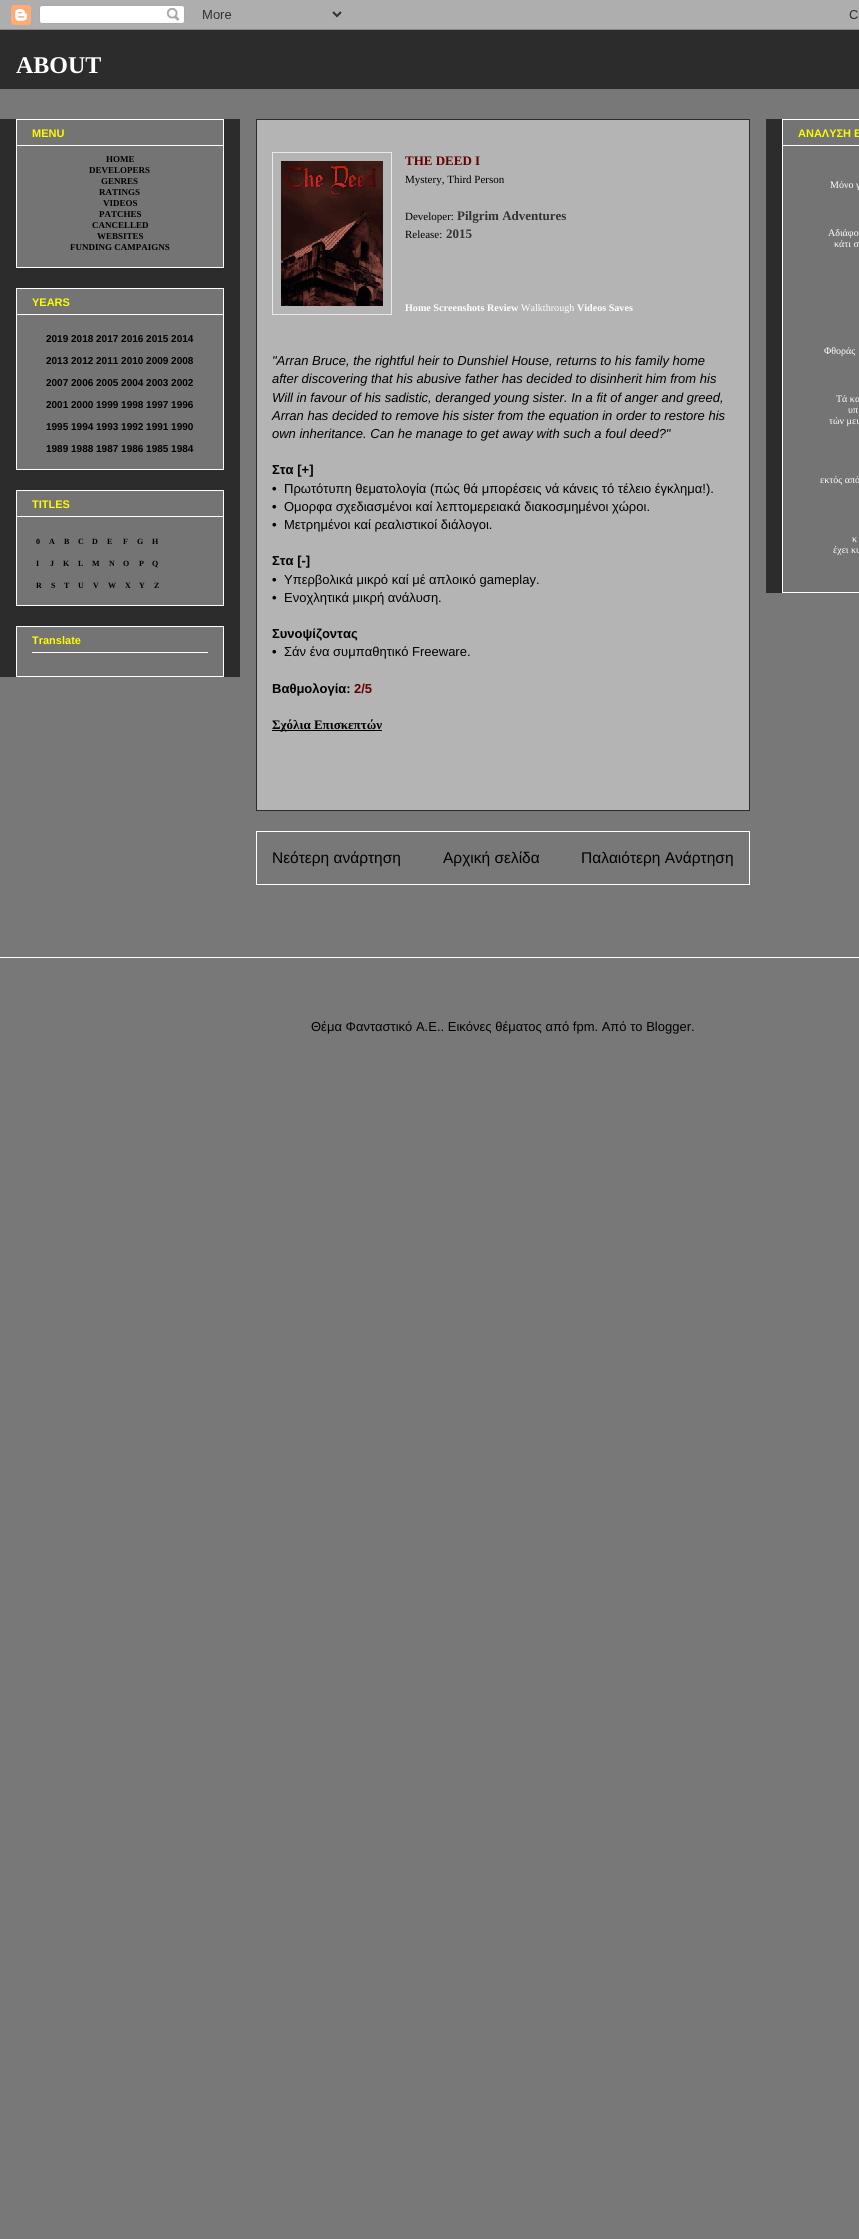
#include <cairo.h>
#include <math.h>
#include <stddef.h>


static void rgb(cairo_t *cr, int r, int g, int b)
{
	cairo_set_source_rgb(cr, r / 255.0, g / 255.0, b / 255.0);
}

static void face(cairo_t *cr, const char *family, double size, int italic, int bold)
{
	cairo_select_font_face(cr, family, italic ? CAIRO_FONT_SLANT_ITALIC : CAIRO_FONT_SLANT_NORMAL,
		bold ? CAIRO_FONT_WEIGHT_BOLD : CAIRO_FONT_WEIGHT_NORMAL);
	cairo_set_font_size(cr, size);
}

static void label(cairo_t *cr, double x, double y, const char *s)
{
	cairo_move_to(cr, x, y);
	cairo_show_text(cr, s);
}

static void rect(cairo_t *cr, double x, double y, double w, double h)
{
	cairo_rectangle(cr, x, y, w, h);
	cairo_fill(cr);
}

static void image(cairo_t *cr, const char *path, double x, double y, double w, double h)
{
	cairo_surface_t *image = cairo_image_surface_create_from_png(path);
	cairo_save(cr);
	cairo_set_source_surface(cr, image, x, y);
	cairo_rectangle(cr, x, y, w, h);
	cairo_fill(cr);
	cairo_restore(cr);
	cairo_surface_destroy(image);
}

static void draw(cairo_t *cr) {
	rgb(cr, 120, 120, 120);
	cairo_paint(cr);
	image(cr, "image0.png", 0, 0, 859, 30);
	rgb(cr, 44, 44, 44);
	rect(cr, 0, 30, 859, 59);
	face(cr, "Liberation Serif", 24, 0, 1);
	rgb(cr, 255, 255, 255);
	label(cr, 16, 73, "ABOUT");
	rgb(cr, 44, 44, 44);
	rect(cr, 0, 119, 240, 558);
	rgb(cr, 116, 116, 116);
	cairo_rectangle(cr, 16.5, 119.5, 207, 148);
	cairo_fill_preserve(cr);
	rgb(cr, 255, 255, 255);
	cairo_set_line_width(cr, 1);
	cairo_stroke(cr);
	face(cr, "Liberation Sans", 11, 0, 1);
	rgb(cr, 252, 252, 2);
	label(cr, 32, 137, "MENU");
	rgb(cr, 255, 255, 255);
	rect(cr, 17, 145, 206, 1);
	face(cr, "Liberation Serif", 9, 0, 1);
	rgb(cr, 0, 0, 0);
	label(cr, 106, 162, "HOME");
	label(cr, 89, 173, "DEVELOPERS");
	label(cr, 101, 184, "GENRES");
	label(cr, 99, 195, "RATINGS");
	label(cr, 103, 206, "VIDEOS");
	label(cr, 99, 217, "PATCHES");
	label(cr, 92, 228, "CANCELLED");
	label(cr, 97, 239, "WEBSITES");
	label(cr, 70, 250, "FUNDING CAMPAIGNS");
	rgb(cr, 116, 116, 116);
	cairo_rectangle(cr, 16.5, 288.5, 207, 181);
	cairo_fill_preserve(cr);
	rgb(cr, 255, 255, 255);
	cairo_stroke(cr);
	face(cr, "Liberation Sans", 11, 0, 1);
	rgb(cr, 252, 252, 2);
	label(cr, 32, 306, "YEARS");
	rgb(cr, 255, 255, 255);
	rect(cr, 17, 314, 206, 1);
	face(cr, "Liberation Sans", 10, 0, 1);
	rgb(cr, 0, 0, 0);
	label(cr, 46, 342, "2019 2018 2017 2016 2015 2014");
	label(cr, 46, 364, "2013 2012 2011 2010 2009 2008");
	label(cr, 46, 386, "2007 2006 2005 2004 2003 2002");
	label(cr, 46, 408, "2001 2000 1999 1998 1997 1996");
	label(cr, 46, 430, "1995 1994 1993 1992 1991 1990");
	label(cr, 46, 452, "1989 1988 1987 1986 1985 1984");
	rgb(cr, 116, 116, 116);
	cairo_rectangle(cr, 16.5, 490.5, 207, 115);
	cairo_fill_preserve(cr);
	rgb(cr, 255, 255, 255);
	cairo_stroke(cr);
	face(cr, "Liberation Sans", 11, 0, 1);
	rgb(cr, 252, 252, 2);
	label(cr, 32, 508, "TITLES");
	rgb(cr, 255, 255, 255);
	rect(cr, 17, 516, 206, 1);
	face(cr, "Liberation Serif", 8, 0, 1);
	rgb(cr, 0, 0, 0);
	label(cr, 36, 544, "0");
	label(cr, 49, 544, "A");
	label(cr, 64, 544, "B");
	label(cr, 78, 544, "C");
	label(cr, 92, 544, "D");
	label(cr, 107, 544, "E");
	label(cr, 123, 544, "F");
	label(cr, 137, 544, "G");
	label(cr, 152, 544, "H");
	label(cr, 36, 566, "I");
	label(cr, 50, 566, "J");
	label(cr, 63, 566, "K");
	label(cr, 78, 566, "L");
	label(cr, 92, 566, "M");
	label(cr, 109, 566, "N");
	label(cr, 123, 566, "O");
	label(cr, 139, 566, "P");
	label(cr, 152, 566, "Q");
	label(cr, 36, 588, "R");
	label(cr, 51, 588, "S");
	label(cr, 64, 588, "T");
	label(cr, 78, 588, "U");
	label(cr, 93, 588, "V");
	label(cr, 108, 588, "W");
	label(cr, 125, 588, "X");
	label(cr, 139, 588, "Y");
	label(cr, 154, 588, "Z");
	rgb(cr, 116, 116, 116);
	cairo_rectangle(cr, 16.5, 626.5, 207, 50);
	cairo_fill_preserve(cr);
	rgb(cr, 255, 255, 255);
	cairo_stroke(cr);
	face(cr, "Liberation Sans", 11, 0, 1);
	rgb(cr, 252, 252, 2);
	label(cr, 32, 644, "Translate");
	rgb(cr, 255, 255, 255);
	rect(cr, 32, 652, 176, 1);
	rgb(cr, 180, 180, 180);
	cairo_rectangle(cr, 256.5, 119.5, 493, 691);
	cairo_fill_preserve(cr);
	rgb(cr, 44, 44, 44);
	cairo_stroke(cr);
	cairo_rectangle(cr, 272.5, 152.5, 119, 162);
	rgb(cr, 232, 232, 232);
	cairo_stroke(cr);
	image(cr, "image1.png", 281, 161, 102, 145);
	face(cr, "Liberation Serif", 13, 0, 1);
	rgb(cr, 102, 0, 0);
	label(cr, 405, 165, "THE DEED I");
	face(cr, "Liberation Serif", 11, 0, 0);
	rgb(cr, 0, 0, 0);
	label(cr, 405, 183, "Mystery, Third Person");
	label(cr, 405, 220, "Developer:");
	face(cr, "Liberation Serif", 13, 0, 1);
	rgb(cr, 51, 51, 51);
	label(cr, 457, 220, "Pilgrim Adventures");
	face(cr, "Liberation Serif", 11, 0, 0);
	rgb(cr, 0, 0, 0);
	label(cr, 405, 238, "Release:");
	face(cr, "Liberation Serif", 13, 0, 1);
	rgb(cr, 51, 51, 51);
	label(cr, 446, 238, "2015");
	face(cr, "Liberation Serif", 10.1, 0, 1);
	rgb(cr, 255, 255, 255);
	label(cr, 405, 311, "Home Screenshots Review");
	face(cr, "Liberation Serif", 10.1, 0, 0);
	label(cr, 521, 311, "Walkthrough");
	face(cr, "Liberation Serif", 10.1, 0, 1);
	label(cr, 577, 311, "Videos Saves");
	face(cr, "Liberation Sans", 13, 1, 0);
	rgb(cr, 0, 0, 0);
	label(cr, 272, 365, "\"Arran Bruce, the rightful heir to Dunshiel House, returns to his family home");
	label(cr, 272, 383, "after discovering that his abusive father has decided to disinherit him from his");
	label(cr, 272, 402, "Will in favour of his sadistic, deranged young sister. In a fit of anger and greed,");
	label(cr, 272, 420, "Arran has decided to remove his sister from the equation in order to restore his");
	label(cr, 272, 438, "own inheritance. Can he manage to get away with such a foul deed?\"");
	face(cr, "Liberation Sans", 13, 0, 1);
	label(cr, 272, 474, "Στα [+]");
	label(cr, 272, 493, "•");
	face(cr, "Liberation Sans", 13, 0, 0);
	label(cr, 284, 493, "Πρωτότυπη θεματολογία (πώς θά μπορέσεις νά κάνεις τό τέλειο έγκλημα!).");
	face(cr, "Liberation Sans", 13, 0, 1);
	label(cr, 272, 511, "•");
	face(cr, "Liberation Sans", 13, 0, 0);
	label(cr, 284, 511, "Ομορφα σχεδιασμένοι καί λεπτομερειακά διακοσμημένοι χώροι.");
	face(cr, "Liberation Sans", 13, 0, 1);
	label(cr, 272, 529, "•");
	face(cr, "Liberation Sans", 13, 0, 0);
	label(cr, 284, 529, "Μετρημένοι καί ρεαλιστικοί διάλογοι.");
	face(cr, "Liberation Sans", 13, 0, 1);
	label(cr, 272, 565, "Στα [-]");
	label(cr, 272, 584, "•");
	face(cr, "Liberation Sans", 13, 0, 0);
	label(cr, 284, 584, "Υπερβολικά μικρό καί μέ απλοικό gameplay.");
	face(cr, "Liberation Sans", 13, 0, 1);
	label(cr, 272, 602, "•");
	face(cr, "Liberation Sans", 13, 0, 0);
	label(cr, 284, 602, "Ενοχλητικά μικρή ανάλυση.");
	face(cr, "Liberation Sans", 13, 0, 1);
	label(cr, 272, 638, "Συνοψίζοντας");
	label(cr, 272, 656, "•");
	face(cr, "Liberation Sans", 13, 0, 0);
	label(cr, 284, 656, "Σάν ένα συμπαθητικό Freeware.");
	face(cr, "Liberation Sans", 13, 0, 1);
	label(cr, 272, 693, "Βαθμολογία:");
	rgb(cr, 102, 0, 0);
	label(cr, 354, 693, "2/5");
	rgb(cr, 0, 0, 0);
	rect(cr, 272, 730, 110, 1);
	face(cr, "Liberation Serif", 13, 0, 1);
	label(cr, 272, 729, "Σχόλια Επισκεπτών");
	cairo_rectangle(cr, 256.5, 831.5, 493, 53);
	rgb(cr, 255, 255, 255);
	cairo_stroke(cr);
	face(cr, "Liberation Sans", 15.5, 0, 0);
	rgb(cr, 0, 0, 0);
	label(cr, 272, 863, "Νεότερη ανάρτηση");
	label(cr, 443, 863, "Αρχική σελίδα");
	label(cr, 581, 863, "Παλαιότερη Ανάρτηση");
	rgb(cr, 44, 44, 44);
	rect(cr, 766, 119, 16, 474);
	rgb(cr, 116, 116, 116);
	cairo_rectangle(cr, 782.5, 119.5, 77, 473);
	cairo_fill_preserve(cr);
	rgb(cr, 255, 255, 255);
	cairo_stroke(cr);
	face(cr, "Liberation Sans", 11, 0, 1);
	rgb(cr, 252, 252, 2);
	label(cr, 798, 137, "ΑΝΑΛΥΣΗ Β");
	rgb(cr, 255, 255, 255);
	rect(cr, 783, 145, 76, 1);
	face(cr, "Liberation Serif", 10, 0, 0);
	label(cr, 830, 188, "Μόνο γ");
	label(cr, 828, 236, "Αδιάφο");
	label(cr, 834, 247, "κάτι σ");
	label(cr, 824, 354, "Φθοράς");
	label(cr, 836, 402, "Τά κα");
	label(cr, 848, 413, "υπ");
	label(cr, 829, 424, "τών μει");
	label(cr, 820, 483, "εκτός από");
	label(cr, 852, 542, "κ");
	label(cr, 833, 553, "έχει κυ");
	rect(cr, 0, 957, 859, 1);
	face(cr, "Liberation Sans", 13, 0, 0);
	rgb(cr, 0, 0, 0);
	label(cr, 311, 1031, "Θέμα Φανταστικό Α.Ε.. Εικόνες θέματος από fpm. Από το Blogger.");
}

int main(void) {
	cairo_surface_t *surface = cairo_image_surface_create(CAIRO_FORMAT_RGB24, 859, 2239);
	cairo_t *cr = cairo_create(surface);
	cairo_font_options_t *options = cairo_font_options_create();
	cairo_font_options_set_hint_metrics(options, CAIRO_HINT_METRICS_OFF);
	cairo_font_options_set_hint_style(options, CAIRO_HINT_STYLE_NONE);
	cairo_set_font_options(cr, options);
	cairo_set_miter_limit(cr, 4);
	draw(cr);
	cairo_surface_write_to_png(surface, "render.png");
	cairo_font_options_destroy(options);
	cairo_destroy(cr);
	cairo_surface_destroy(surface);
	return 0;
}
